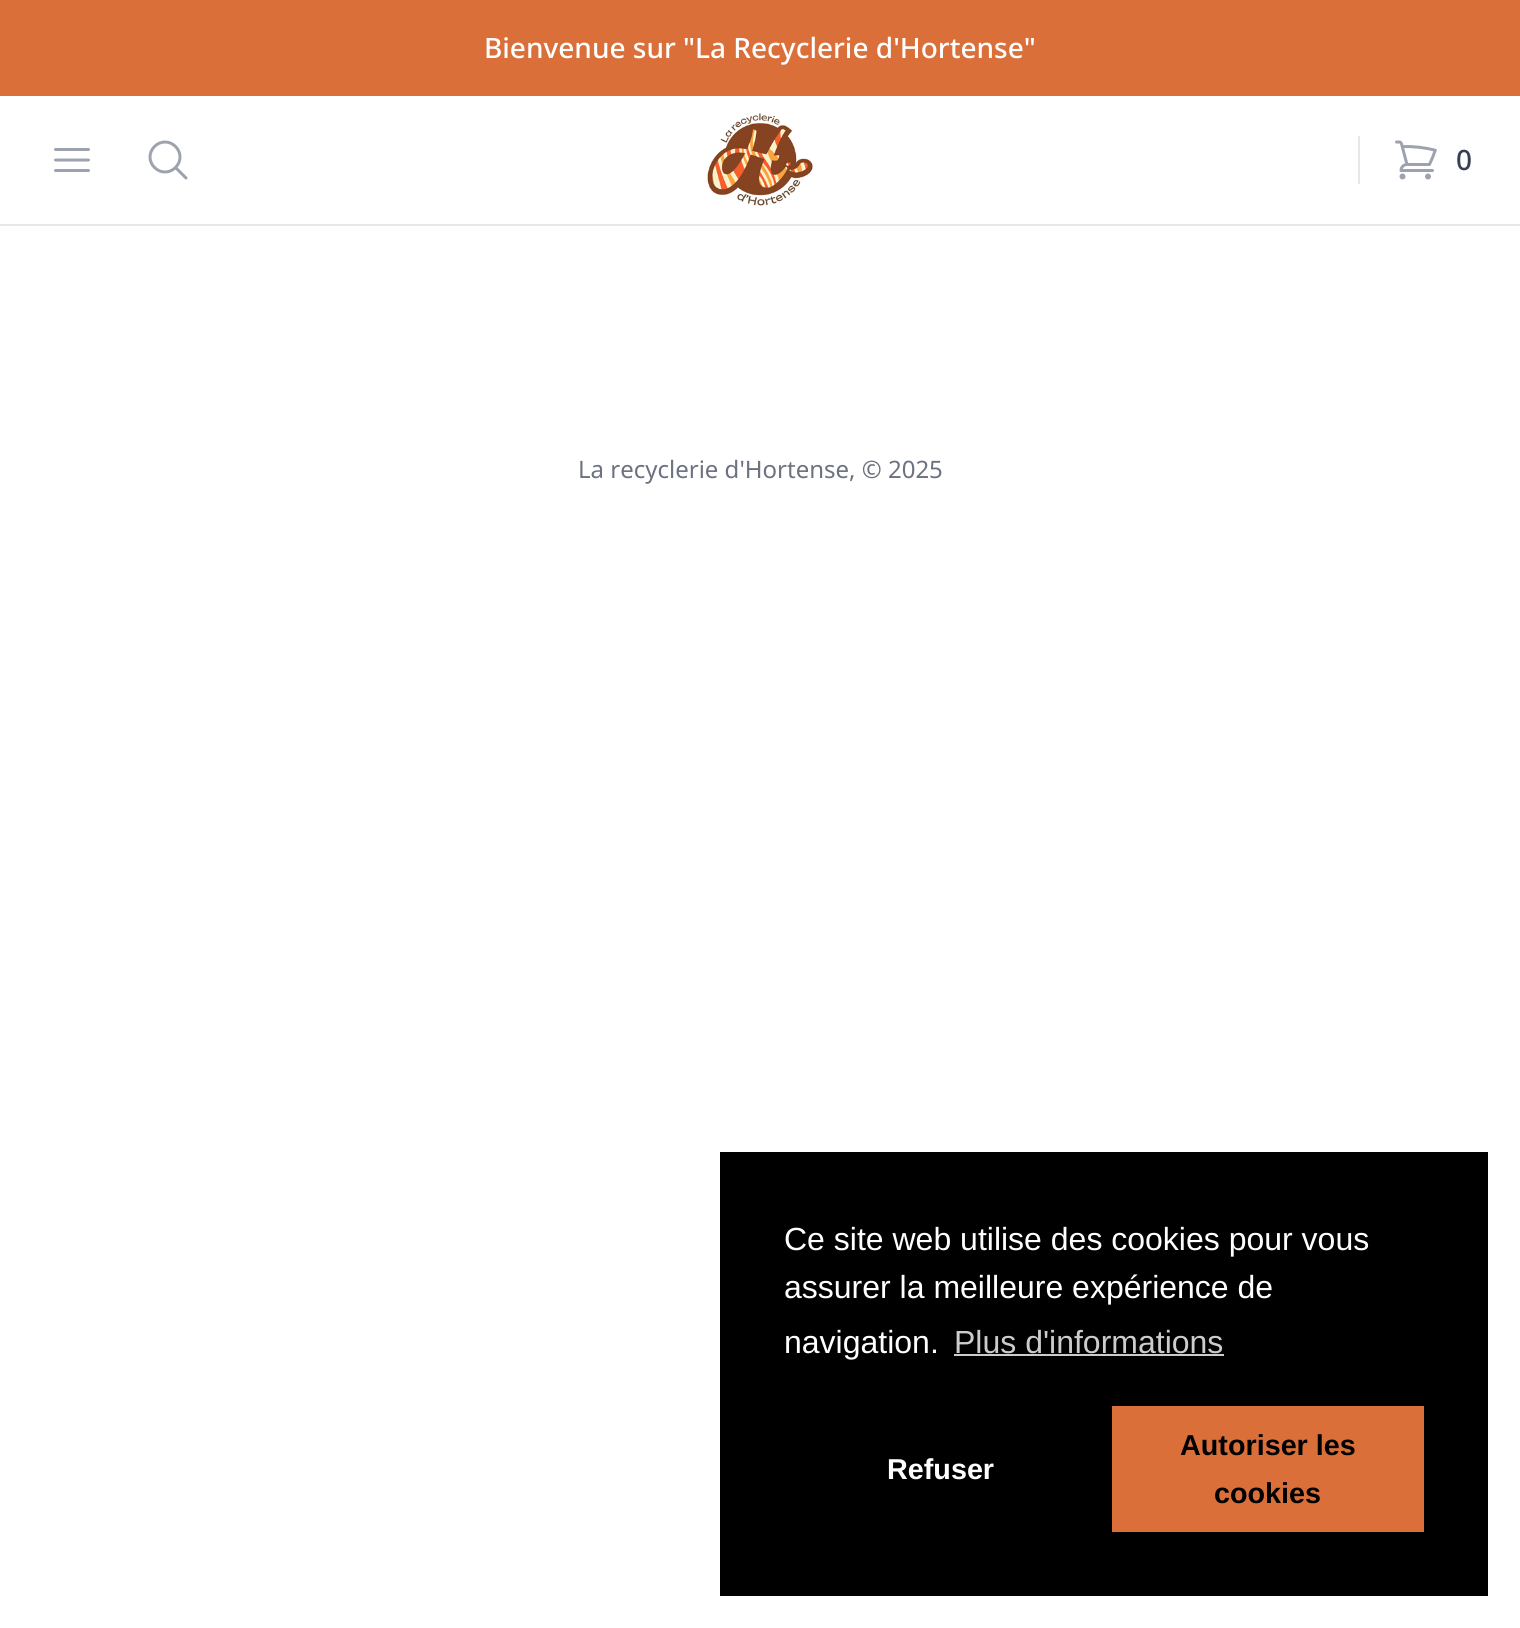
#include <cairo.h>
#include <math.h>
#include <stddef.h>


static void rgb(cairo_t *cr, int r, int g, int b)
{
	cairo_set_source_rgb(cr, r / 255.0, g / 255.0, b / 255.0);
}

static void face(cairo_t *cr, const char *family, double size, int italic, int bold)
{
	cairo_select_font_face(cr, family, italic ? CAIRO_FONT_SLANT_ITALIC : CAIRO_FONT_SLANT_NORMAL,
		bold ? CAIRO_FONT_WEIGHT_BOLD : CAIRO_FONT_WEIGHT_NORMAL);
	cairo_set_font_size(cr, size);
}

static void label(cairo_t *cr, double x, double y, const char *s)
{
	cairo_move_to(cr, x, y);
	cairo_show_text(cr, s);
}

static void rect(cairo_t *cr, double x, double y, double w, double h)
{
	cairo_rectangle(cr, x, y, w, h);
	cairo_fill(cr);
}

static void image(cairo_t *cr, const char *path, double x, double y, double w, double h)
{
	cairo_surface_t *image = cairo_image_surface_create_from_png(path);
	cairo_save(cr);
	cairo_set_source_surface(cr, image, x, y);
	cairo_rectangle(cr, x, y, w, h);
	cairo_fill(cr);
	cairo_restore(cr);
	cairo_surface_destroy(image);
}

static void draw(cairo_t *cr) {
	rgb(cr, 255, 255, 255);
	cairo_paint(cr);
	rgb(cr, 219, 111, 57);
	rect(cr, 0, 0, 1520, 96);
	face(cr, "Noto Sans Medium", 28, 0, 0);
	rgb(cr, 255, 255, 255);
	label(cr, 484, 58, "Bienvenue sur \"La Recyclerie d'Hortense\"");
	rgb(cr, 229, 231, 235);
	rect(cr, 0, 224, 1520, 2);
	cairo_new_path(cr);
	cairo_move_to(cr, 55.5, 149.5);
	cairo_line_to(cr, 88.5, 149.5);
	cairo_move_to(cr, 55.5, 160);
	cairo_line_to(cr, 88.5, 160);
	cairo_move_to(cr, 55.5, 170.5);
	cairo_line_to(cr, 88.5, 170.5);
	rgb(cr, 156, 163, 175);
	cairo_set_line_width(cr, 3);
	cairo_set_line_cap(cr, CAIRO_LINE_CAP_ROUND);
	cairo_set_line_join(cr, CAIRO_LINE_JOIN_ROUND);
	cairo_stroke(cr);
	cairo_new_path(cr);
	cairo_move_to(cr, 186, 178);
	cairo_line_to(cr, 175.5, 167.5);
	cairo_move_to(cr, 175.5, 167.5);
	cairo_curve_to(cr, 181.5, 161.5, 181.5, 152.5, 175.5, 146.5);
	cairo_curve_to(cr, 169.5, 140.5, 160.5, 140.5, 154.5, 146.5);
	cairo_curve_to(cr, 148.5, 152.5, 148.5, 161.5, 154.5, 167.5);
	cairo_curve_to(cr, 160.5, 173.5, 169.5, 173.5, 175.5, 167.5);
	cairo_close_path(cr);
	cairo_stroke(cr);
	image(cr, "image0.png", 707, 113, 106, 93);
	rgb(cr, 229, 231, 235);
	rect(cr, 1358, 136, 2, 48);
	image(cr, "image1.png", 1395, 140, 42, 40);
	rgb(cr, 55, 65, 81);
	label(cr, 1456, 170, "0");
	face(cr, "Noto Sans", 24, 0, 0);
	rgb(cr, 107, 114, 128);
	label(cr, 578, 478, "La recyclerie d'Hortense, © 2025");
	rgb(cr, 0, 0, 0);
	rect(cr, 720, 1152, 768, 444);
	face(cr, "Liberation Sans", 32, 0, 0);
	rgb(cr, 255, 255, 255);
	label(cr, 784, 1250, "Ce site web utilise des cookies pour vous");
	label(cr, 784, 1298, "assurer la meilleure expérience de");
	label(cr, 784, 1353, "navigation.");
	rgb(cr, 204, 204, 204);
	label(cr, 954, 1353, "Plus d'informations");
	rect(cr, 954, 1354, 270, 2);
	face(cr, "Liberation Sans", 28.75, 0, 1);
	rgb(cr, 255, 255, 255);
	label(cr, 887, 1479, "Refuser");
	rgb(cr, 219, 111, 57);
	rect(cr, 1112, 1406, 312, 126);
	rgb(cr, 0, 0, 0);
	label(cr, 1180, 1455, "Autoriser les");
	label(cr, 1214, 1503, "cookies");
}

int main(void) {
	cairo_surface_t *surface = cairo_image_surface_create(CAIRO_FORMAT_RGB24, 1520, 1628);
	cairo_t *cr = cairo_create(surface);
	cairo_font_options_t *options = cairo_font_options_create();
	cairo_font_options_set_hint_metrics(options, CAIRO_HINT_METRICS_OFF);
	cairo_font_options_set_hint_style(options, CAIRO_HINT_STYLE_NONE);
	cairo_set_font_options(cr, options);
	cairo_set_miter_limit(cr, 4);
	draw(cr);
	cairo_surface_write_to_png(surface, "render.png");
	cairo_font_options_destroy(options);
	cairo_destroy(cr);
	cairo_surface_destroy(surface);
	return 0;
}
